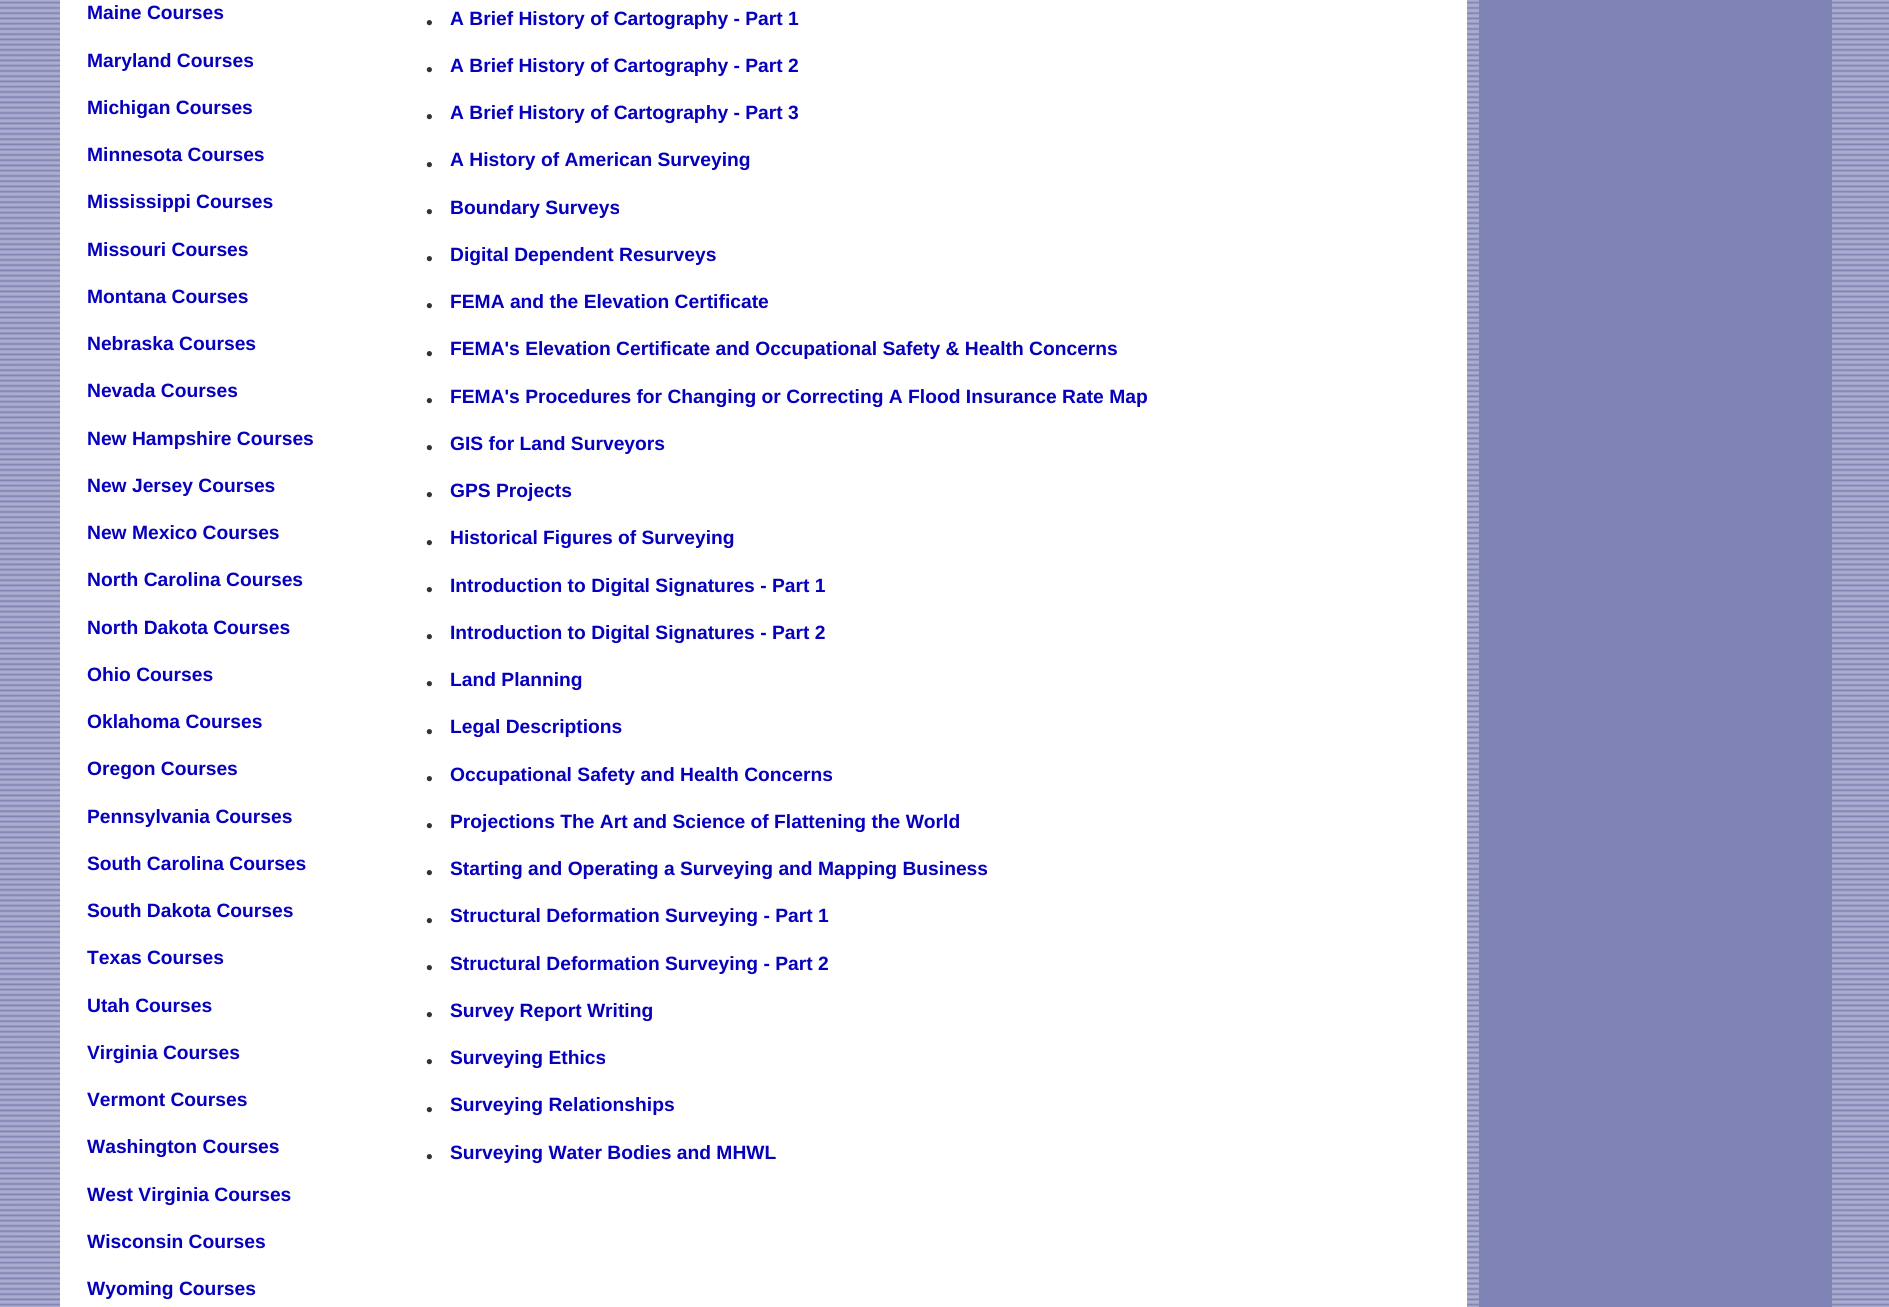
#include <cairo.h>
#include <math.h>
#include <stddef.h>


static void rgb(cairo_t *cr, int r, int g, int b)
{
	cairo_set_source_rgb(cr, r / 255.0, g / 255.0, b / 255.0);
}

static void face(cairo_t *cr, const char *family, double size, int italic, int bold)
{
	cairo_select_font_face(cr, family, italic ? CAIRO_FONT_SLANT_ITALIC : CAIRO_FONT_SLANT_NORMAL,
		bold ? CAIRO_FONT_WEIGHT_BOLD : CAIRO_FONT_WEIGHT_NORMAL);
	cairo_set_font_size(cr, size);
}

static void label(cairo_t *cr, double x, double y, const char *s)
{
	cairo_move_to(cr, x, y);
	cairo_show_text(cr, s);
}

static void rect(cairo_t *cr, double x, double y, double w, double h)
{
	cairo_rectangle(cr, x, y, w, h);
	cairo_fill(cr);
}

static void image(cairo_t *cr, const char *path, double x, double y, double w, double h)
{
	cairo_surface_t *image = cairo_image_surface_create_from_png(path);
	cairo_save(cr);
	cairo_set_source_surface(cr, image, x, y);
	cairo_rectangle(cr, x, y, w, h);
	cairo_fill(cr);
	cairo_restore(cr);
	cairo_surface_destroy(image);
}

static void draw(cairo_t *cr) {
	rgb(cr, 255, 255, 255);
	cairo_paint(cr);
	image(cr, "image0.png", 0, 0, 1889, 1307);
	rgb(cr, 255, 255, 255);
	rect(cr, 60, 0, 1407, 1307);
	face(cr, "Liberation Sans", 19.25, 0, 1);
	rgb(cr, 6, 0, 188);
	label(cr, 87, 19, "Maine Courses");
	label(cr, 87, 67, "Maryland Courses");
	label(cr, 87, 114, "Michigan Courses");
	label(cr, 87, 161, "Minnesota Courses");
	label(cr, 87, 208, "Mississippi Courses");
	label(cr, 87, 256, "Missouri Courses");
	label(cr, 87, 303, "Montana Courses");
	label(cr, 87, 350, "Nebraska Courses");
	label(cr, 87, 397, "Nevada Courses");
	label(cr, 87, 445, "New Hampshire Courses");
	label(cr, 87, 492, "New Jersey Courses");
	label(cr, 87, 539, "New Mexico Courses");
	label(cr, 87, 586, "North Carolina Courses");
	label(cr, 87, 634, "North Dakota Courses");
	label(cr, 87, 681, "Ohio Courses");
	label(cr, 87, 728, "Oklahoma Courses");
	label(cr, 87, 775, "Oregon Courses");
	label(cr, 87, 823, "Pennsylvania Courses");
	label(cr, 87, 870, "South Carolina Courses");
	label(cr, 87, 917, "South Dakota Courses");
	label(cr, 87, 964, "Texas Courses");
	label(cr, 87, 1012, "Utah Courses");
	label(cr, 87, 1059, "Virginia Courses");
	label(cr, 87, 1106, "Vermont Courses");
	label(cr, 87, 1153, "Washington Courses");
	label(cr, 87, 1201, "West Virginia Courses");
	label(cr, 87, 1248, "Wisconsin Courses");
	label(cr, 87, 1295, "Wyoming Courses");
	face(cr, "Liberation Sans", 19.25, 0, 0);
	rgb(cr, 51, 51, 51);
	label(cr, 426, 29, "•");
	face(cr, "Liberation Sans", 19.25, 0, 1);
	rgb(cr, 6, 0, 188);
	label(cr, 450, 25, "A Brief History of Cartography - Part 1");
	face(cr, "Liberation Sans", 19.25, 0, 0);
	rgb(cr, 51, 51, 51);
	label(cr, 426, 76, "•");
	face(cr, "Liberation Sans", 19.25, 0, 1);
	rgb(cr, 6, 0, 188);
	label(cr, 450, 72, "A Brief History of Cartography - Part 2");
	face(cr, "Liberation Sans", 19.25, 0, 0);
	rgb(cr, 51, 51, 51);
	label(cr, 426, 123, "•");
	face(cr, "Liberation Sans", 19.25, 0, 1);
	rgb(cr, 6, 0, 188);
	label(cr, 450, 119, "A Brief History of Cartography - Part 3");
	face(cr, "Liberation Sans", 19.25, 0, 0);
	rgb(cr, 51, 51, 51);
	label(cr, 426, 171, "•");
	face(cr, "Liberation Sans", 19.25, 0, 1);
	rgb(cr, 6, 0, 188);
	label(cr, 450, 166, "A History of American Surveying");
	face(cr, "Liberation Sans", 19.25, 0, 0);
	rgb(cr, 51, 51, 51);
	label(cr, 426, 218, "•");
	face(cr, "Liberation Sans", 19.25, 0, 1);
	rgb(cr, 6, 0, 188);
	label(cr, 450, 214, "Boundary Surveys");
	face(cr, "Liberation Sans", 19.25, 0, 0);
	rgb(cr, 51, 51, 51);
	label(cr, 426, 265, "•");
	face(cr, "Liberation Sans", 19.25, 0, 1);
	rgb(cr, 6, 0, 188);
	label(cr, 450, 261, "Digital Dependent Resurveys");
	face(cr, "Liberation Sans", 19.25, 0, 0);
	rgb(cr, 51, 51, 51);
	label(cr, 426, 312, "•");
	face(cr, "Liberation Sans", 19.25, 0, 1);
	rgb(cr, 6, 0, 188);
	label(cr, 450, 308, "FEMA and the Elevation Certificate");
	face(cr, "Liberation Sans", 19.25, 0, 0);
	rgb(cr, 51, 51, 51);
	label(cr, 426, 360, "•");
	face(cr, "Liberation Sans", 19.25, 0, 1);
	rgb(cr, 6, 0, 188);
	label(cr, 450, 355, "FEMA's Elevation Certificate and Occupational Safety & Health Concerns");
	face(cr, "Liberation Sans", 19.25, 0, 0);
	rgb(cr, 51, 51, 51);
	label(cr, 426, 407, "•");
	face(cr, "Liberation Sans", 19.25, 0, 1);
	rgb(cr, 6, 0, 188);
	label(cr, 450, 403, "FEMA's Procedures for Changing or Correcting A Flood Insurance Rate Map");
	face(cr, "Liberation Sans", 19.25, 0, 0);
	rgb(cr, 51, 51, 51);
	label(cr, 426, 454, "•");
	face(cr, "Liberation Sans", 19.25, 0, 1);
	rgb(cr, 6, 0, 188);
	label(cr, 450, 450, "GIS for Land Surveyors");
	face(cr, "Liberation Sans", 19.25, 0, 0);
	rgb(cr, 51, 51, 51);
	label(cr, 426, 501, "•");
	face(cr, "Liberation Sans", 19.25, 0, 1);
	rgb(cr, 6, 0, 188);
	label(cr, 450, 497, "GPS Projects");
	face(cr, "Liberation Sans", 19.25, 0, 0);
	rgb(cr, 51, 51, 51);
	label(cr, 426, 549, "•");
	face(cr, "Liberation Sans", 19.25, 0, 1);
	rgb(cr, 6, 0, 188);
	label(cr, 450, 544, "Historical Figures of Surveying");
	face(cr, "Liberation Sans", 19.25, 0, 0);
	rgb(cr, 51, 51, 51);
	label(cr, 426, 596, "•");
	face(cr, "Liberation Sans", 19.25, 0, 1);
	rgb(cr, 6, 0, 188);
	label(cr, 450, 592, "Introduction to Digital Signatures - Part 1");
	face(cr, "Liberation Sans", 19.25, 0, 0);
	rgb(cr, 51, 51, 51);
	label(cr, 426, 643, "•");
	face(cr, "Liberation Sans", 19.25, 0, 1);
	rgb(cr, 6, 0, 188);
	label(cr, 450, 639, "Introduction to Digital Signatures - Part 2");
	face(cr, "Liberation Sans", 19.25, 0, 0);
	rgb(cr, 51, 51, 51);
	label(cr, 426, 690, "•");
	face(cr, "Liberation Sans", 19.25, 0, 1);
	rgb(cr, 6, 0, 188);
	label(cr, 450, 686, "Land Planning");
	face(cr, "Liberation Sans", 19.25, 0, 0);
	rgb(cr, 51, 51, 51);
	label(cr, 426, 738, "•");
	face(cr, "Liberation Sans", 19.25, 0, 1);
	rgb(cr, 6, 0, 188);
	label(cr, 450, 733, "Legal Descriptions");
	face(cr, "Liberation Sans", 19.25, 0, 0);
	rgb(cr, 51, 51, 51);
	label(cr, 426, 785, "•");
	face(cr, "Liberation Sans", 19.25, 0, 1);
	rgb(cr, 6, 0, 188);
	label(cr, 450, 781, "Occupational Safety and Health Concerns");
	face(cr, "Liberation Sans", 19.25, 0, 0);
	rgb(cr, 51, 51, 51);
	label(cr, 426, 832, "•");
	face(cr, "Liberation Sans", 19.25, 0, 1);
	rgb(cr, 6, 0, 188);
	label(cr, 450, 828, "Projections The Art and Science of Flattening the World");
	face(cr, "Liberation Sans", 19.25, 0, 0);
	rgb(cr, 51, 51, 51);
	label(cr, 426, 879, "•");
	face(cr, "Liberation Sans", 19.25, 0, 1);
	rgb(cr, 6, 0, 188);
	label(cr, 450, 875, "Starting and Operating a Surveying and Mapping Business");
	face(cr, "Liberation Sans", 19.25, 0, 0);
	rgb(cr, 51, 51, 51);
	label(cr, 426, 927, "•");
	face(cr, "Liberation Sans", 19.25, 0, 1);
	rgb(cr, 6, 0, 188);
	label(cr, 450, 922, "Structural Deformation Surveying - Part 1");
	face(cr, "Liberation Sans", 19.25, 0, 0);
	rgb(cr, 51, 51, 51);
	label(cr, 426, 974, "•");
	face(cr, "Liberation Sans", 19.25, 0, 1);
	rgb(cr, 6, 0, 188);
	label(cr, 450, 970, "Structural Deformation Surveying - Part 2");
	face(cr, "Liberation Sans", 19.25, 0, 0);
	rgb(cr, 51, 51, 51);
	label(cr, 426, 1021, "•");
	face(cr, "Liberation Sans", 19.25, 0, 1);
	rgb(cr, 6, 0, 188);
	label(cr, 450, 1017, "Survey Report Writing");
	face(cr, "Liberation Sans", 19.25, 0, 0);
	rgb(cr, 51, 51, 51);
	label(cr, 426, 1068, "•");
	face(cr, "Liberation Sans", 19.25, 0, 1);
	rgb(cr, 6, 0, 188);
	label(cr, 450, 1064, "Surveying Ethics");
	face(cr, "Liberation Sans", 19.25, 0, 0);
	rgb(cr, 51, 51, 51);
	label(cr, 426, 1116, "•");
	face(cr, "Liberation Sans", 19.25, 0, 1);
	rgb(cr, 6, 0, 188);
	label(cr, 450, 1111, "Surveying Relationships");
	face(cr, "Liberation Sans", 19.25, 0, 0);
	rgb(cr, 51, 51, 51);
	label(cr, 426, 1163, "•");
	face(cr, "Liberation Sans", 19.25, 0, 1);
	rgb(cr, 6, 0, 188);
	label(cr, 450, 1159, "Surveying Water Bodies and MHWL");
	rgb(cr, 127, 131, 181);
	rect(cr, 1479, 0, 353, 1307);
}

int main(void) {
	cairo_surface_t *surface = cairo_image_surface_create(CAIRO_FORMAT_RGB24, 1889, 1307);
	cairo_t *cr = cairo_create(surface);
	cairo_font_options_t *options = cairo_font_options_create();
	cairo_font_options_set_hint_metrics(options, CAIRO_HINT_METRICS_OFF);
	cairo_font_options_set_hint_style(options, CAIRO_HINT_STYLE_NONE);
	cairo_set_font_options(cr, options);
	cairo_set_miter_limit(cr, 4);
	draw(cr);
	cairo_surface_write_to_png(surface, "render.png");
	cairo_font_options_destroy(options);
	cairo_destroy(cr);
	cairo_surface_destroy(surface);
	return 0;
}
